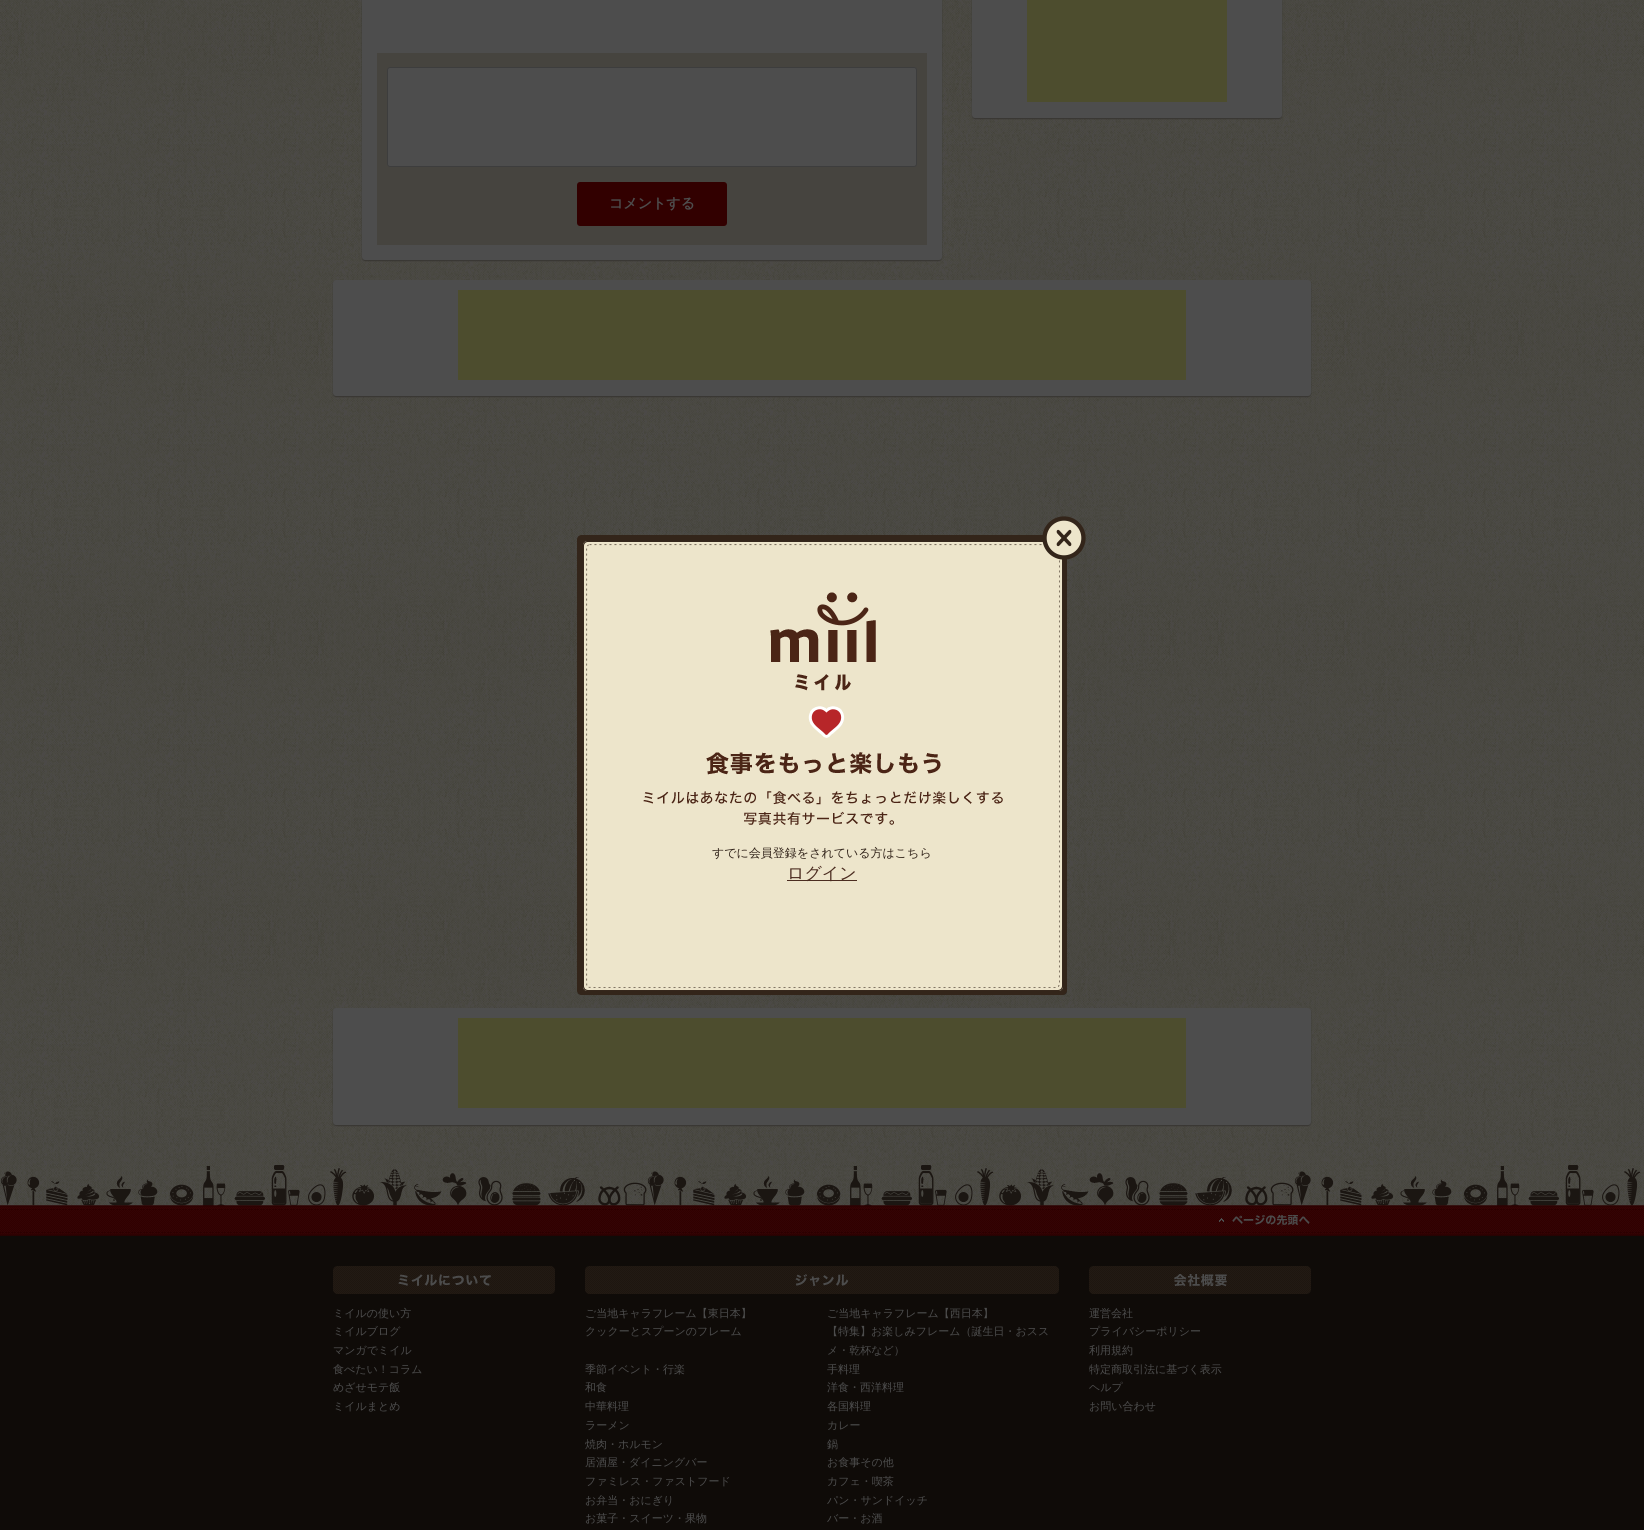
#include <cairo.h>
#include <math.h>
#include <stddef.h>


static void rgb(cairo_t *cr, int r, int g, int b)
{
	cairo_set_source_rgb(cr, r / 255.0, g / 255.0, b / 255.0);
}

static void face(cairo_t *cr, const char *family, double size, int italic, int bold)
{
	cairo_select_font_face(cr, family, italic ? CAIRO_FONT_SLANT_ITALIC : CAIRO_FONT_SLANT_NORMAL,
		bold ? CAIRO_FONT_WEIGHT_BOLD : CAIRO_FONT_WEIGHT_NORMAL);
	cairo_set_font_size(cr, size);
}

static void label(cairo_t *cr, double x, double y, const char *s)
{
	cairo_move_to(cr, x, y);
	cairo_show_text(cr, s);
}

static void rect(cairo_t *cr, double x, double y, double w, double h)
{
	cairo_rectangle(cr, x, y, w, h);
	cairo_fill(cr);
}

static void rrect(cairo_t *cr, double x, double y, double w, double h, double r)
{
	cairo_new_sub_path(cr);
	cairo_arc(cr, x + w - r, y + h - r, r, 0, M_PI / 2);
	cairo_arc(cr, x + r, y + h - r, r, M_PI / 2, M_PI);
	cairo_arc(cr, x + r, y + r, r, M_PI, 1.5 * M_PI);
	cairo_arc(cr, x + w - r, y + r, r, 1.5 * M_PI, 2 * M_PI);
	cairo_close_path(cr);
}

static void soft_shadow(cairo_t *cr, double x, double y, double w, double h, double r, double blur, double alpha)
{
	cairo_push_group_with_content(cr, CAIRO_CONTENT_ALPHA);
	cairo_set_operator(cr, CAIRO_OPERATOR_SOURCE);
	for (int i = 15; i >= -15 && fmin(w, h) + blur * i / 3 > 0; i -= 2) {
		double e = blur * i / 6;
		cairo_set_source_rgba(cr, 0, 0, 0, alpha * erfc((i - 1) / 8.5) / 2);
		rrect(cr, x - e, y - e, w + 2 * e, h + 2 * e, fmax(0, fmin(r + e + blur * .6, fmin(w, h) / 2 + e)));
		cairo_fill(cr);
	}
	cairo_pattern_t *soft = cairo_pop_group(cr);
	cairo_mask(cr, soft);
	cairo_pattern_destroy(soft);
}

static void image(cairo_t *cr, const char *path, double x, double y, double w, double h)
{
	cairo_surface_t *image = cairo_image_surface_create_from_png(path);
	cairo_save(cr);
	cairo_set_source_surface(cr, image, x, y);
	cairo_rectangle(cr, x, y, w, h);
	cairo_fill(cr);
	cairo_restore(cr);
	cairo_surface_destroy(image);
}

static void draw(cairo_t *cr) {
	rgb(cr, 255, 255, 255);
	cairo_paint(cr);
	image(cr, "image0.png", 0, 0, 1644, 1165);
	rgb(cr, 56, 54, 50);
	soft_shadow(cr, 972, -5, 310, 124, 3, 0.5, 1);
	rgb(cr, 77, 77, 77);
	rrect(cr, 972, -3, 310, 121, 3);
	cairo_fill(cr);
	rgb(cr, 77, 77, 46);
	rect(cr, 1027, 0, 200, 102);
	rgb(cr, 56, 54, 50);
	soft_shadow(cr, 362, -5, 580, 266, 3, 0.5, 1);
	rgb(cr, 77, 77, 77);
	rrect(cr, 362, -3, 580, 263, 3);
	cairo_fill(cr);
	rgb(cr, 70, 68, 63);
	rect(cr, 377, 53, 550, 192);
	rgb(cr, 77, 77, 77);
	rrect(cr, 387.5, 67.5, 529, 99, 2.5);
	cairo_fill_preserve(cr);
	rgb(cr, 61, 61, 61);
	cairo_set_line_width(cr, 1);
	cairo_stroke(cr);
	rgb(cr, 50, 0, 0);
	rrect(cr, 577, 182, 150, 44, 3);
	cairo_fill(cr);
	face(cr, "WenQuanYi Zen Hei", 14, 0, 1);
	rgb(cr, 77, 77, 77);
	label(cr, 609, 208, "コメントする");
	rgb(cr, 56, 54, 50);
	soft_shadow(cr, 333, 281, 978, 116, 3, 0.5, 1);
	rgb(cr, 77, 77, 77);
	rrect(cr, 333, 280, 978, 116, 3);
	cairo_fill(cr);
	rgb(cr, 77, 77, 46);
	rect(cr, 458, 290, 728, 90);
	rgb(cr, 56, 54, 50);
	soft_shadow(cr, 333, 1009, 978, 117, 3, 0.5, 1);
	rgb(cr, 77, 77, 77);
	rrect(cr, 333, 1008, 978, 117, 3);
	cairo_fill(cr);
	rgb(cr, 77, 77, 46);
	rect(cr, 458, 1018, 728, 90);
	rgb(cr, 15, 11, 8);
	rect(cr, 0, 1236, 1644, 294);
	image(cr, "image1.png", 0, 1165, 1644, 71);
	image(cr, "image2.png", 1219, 1215, 91, 11);
	image(cr, "image3.png", 333, 1266, 222, 28);
	face(cr, "WenQuanYi Zen Hei Medium", 11, 0, 0);
	rgb(cr, 77, 77, 77);
	label(cr, 333, 1317, "ミイルの使い方");
	label(cr, 333, 1335, "ミイルブログ");
	label(cr, 333, 1354, "マンガでミイル");
	label(cr, 333, 1373, "食べたい！コラム");
	label(cr, 333, 1391, "めざせモテ飯");
	label(cr, 333, 1410, "ミイルまとめ");
	image(cr, "image4.png", 585, 1266, 474, 28);
	label(cr, 585, 1317, "ご当地キャラフレーム【東日本】");
	label(cr, 827, 1317, "ご当地キャラフレーム【西日本】");
	label(cr, 585, 1335, "クックーとスプーンのフレーム");
	label(cr, 827, 1335, "【特集】お楽しみフレーム（誕生日・おスス");
	label(cr, 827, 1354, "メ・乾杯など）");
	label(cr, 585, 1373, "季節イベント・行楽");
	label(cr, 827, 1373, "手料理");
	label(cr, 585, 1391, "和食");
	label(cr, 827, 1391, "洋食・西洋料理");
	label(cr, 585, 1410, "中華料理");
	label(cr, 827, 1410, "各国料理");
	label(cr, 585, 1429, "ラーメン");
	label(cr, 827, 1429, "カレー");
	label(cr, 585, 1448, "焼肉・ホルモン");
	label(cr, 827, 1448, "鍋");
	label(cr, 585, 1466, "居酒屋・ダイニングバー");
	label(cr, 827, 1466, "お食事その他");
	label(cr, 585, 1485, "ファミレス・ファストフード");
	label(cr, 827, 1485, "カフェ・喫茶");
	label(cr, 585, 1504, "お弁当・おにぎり");
	label(cr, 827, 1504, "パン・サンドイッチ");
	label(cr, 585, 1522, "お菓子・スイーツ・果物");
	label(cr, 827, 1522, "バー・お酒");
	image(cr, "image5.png", 1089, 1266, 222, 28);
	label(cr, 1089, 1317, "運営会社");
	label(cr, 1089, 1335, "プライバシーポリシー");
	label(cr, 1089, 1354, "利用規約");
	label(cr, 1089, 1373, "特定商取引法に基づく表示");
	label(cr, 1089, 1391, "ヘルプ");
	label(cr, 1089, 1410, "お問い合わせ");
	image(cr, "image6.png", 577, 535, 490, 460);
	image(cr, "image7.png", 1042, 516, 44, 44);
	face(cr, "WenQuanYi Zen Hei Medium", 12, 0, 0);
	rgb(cr, 51, 37, 27);
	label(cr, 712, 857, "すでに会員登録をされている方はこちら");
	rgb(cr, 75, 44, 32);
	rect(cr, 787, 880, 70, 1);
	face(cr, "WenQuanYi Zen Hei Medium", 17, 0, 0);
	label(cr, 787, 879, "ログイン");
}

int main(void) {
	cairo_surface_t *surface = cairo_image_surface_create(CAIRO_FORMAT_RGB24, 1644, 1530);
	cairo_t *cr = cairo_create(surface);
	cairo_font_options_t *options = cairo_font_options_create();
	cairo_font_options_set_hint_metrics(options, CAIRO_HINT_METRICS_OFF);
	cairo_font_options_set_hint_style(options, CAIRO_HINT_STYLE_NONE);
	cairo_set_font_options(cr, options);
	cairo_set_miter_limit(cr, 4);
	draw(cr);
	cairo_surface_write_to_png(surface, "render.png");
	cairo_font_options_destroy(options);
	cairo_destroy(cr);
	cairo_surface_destroy(surface);
	return 0;
}
